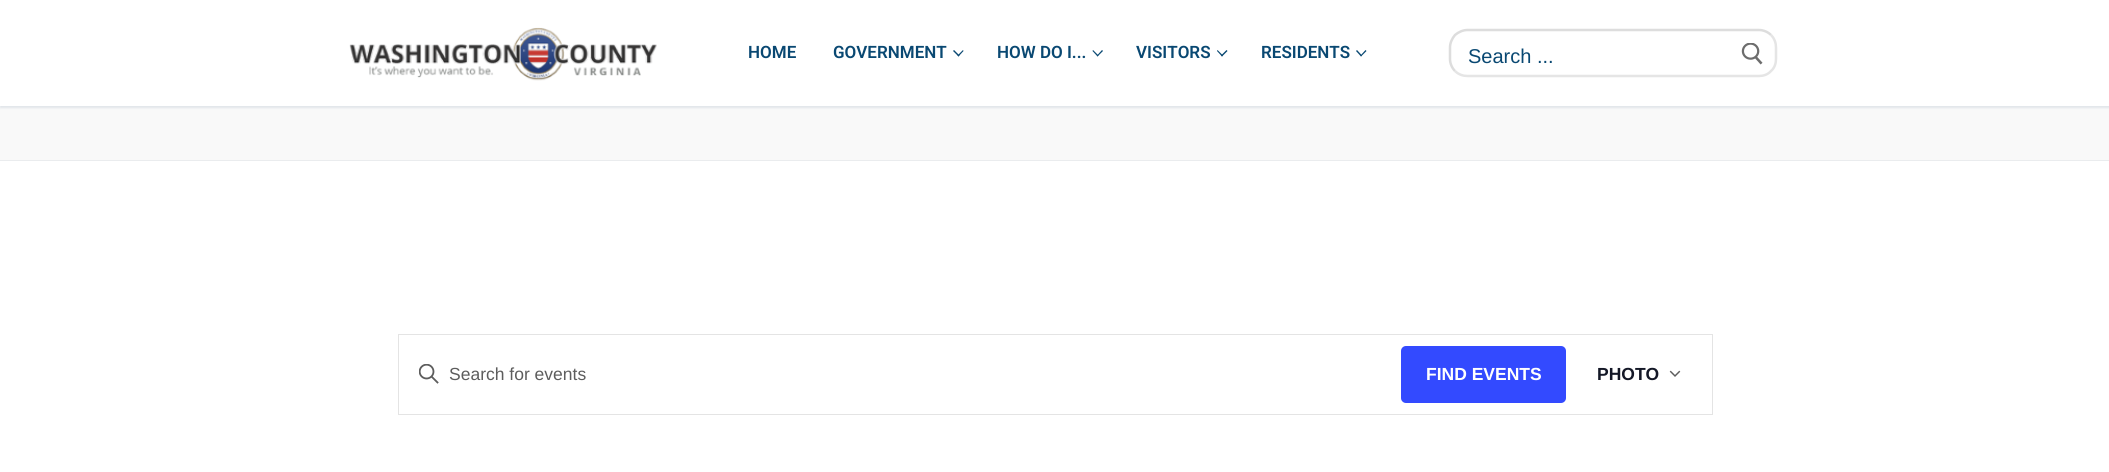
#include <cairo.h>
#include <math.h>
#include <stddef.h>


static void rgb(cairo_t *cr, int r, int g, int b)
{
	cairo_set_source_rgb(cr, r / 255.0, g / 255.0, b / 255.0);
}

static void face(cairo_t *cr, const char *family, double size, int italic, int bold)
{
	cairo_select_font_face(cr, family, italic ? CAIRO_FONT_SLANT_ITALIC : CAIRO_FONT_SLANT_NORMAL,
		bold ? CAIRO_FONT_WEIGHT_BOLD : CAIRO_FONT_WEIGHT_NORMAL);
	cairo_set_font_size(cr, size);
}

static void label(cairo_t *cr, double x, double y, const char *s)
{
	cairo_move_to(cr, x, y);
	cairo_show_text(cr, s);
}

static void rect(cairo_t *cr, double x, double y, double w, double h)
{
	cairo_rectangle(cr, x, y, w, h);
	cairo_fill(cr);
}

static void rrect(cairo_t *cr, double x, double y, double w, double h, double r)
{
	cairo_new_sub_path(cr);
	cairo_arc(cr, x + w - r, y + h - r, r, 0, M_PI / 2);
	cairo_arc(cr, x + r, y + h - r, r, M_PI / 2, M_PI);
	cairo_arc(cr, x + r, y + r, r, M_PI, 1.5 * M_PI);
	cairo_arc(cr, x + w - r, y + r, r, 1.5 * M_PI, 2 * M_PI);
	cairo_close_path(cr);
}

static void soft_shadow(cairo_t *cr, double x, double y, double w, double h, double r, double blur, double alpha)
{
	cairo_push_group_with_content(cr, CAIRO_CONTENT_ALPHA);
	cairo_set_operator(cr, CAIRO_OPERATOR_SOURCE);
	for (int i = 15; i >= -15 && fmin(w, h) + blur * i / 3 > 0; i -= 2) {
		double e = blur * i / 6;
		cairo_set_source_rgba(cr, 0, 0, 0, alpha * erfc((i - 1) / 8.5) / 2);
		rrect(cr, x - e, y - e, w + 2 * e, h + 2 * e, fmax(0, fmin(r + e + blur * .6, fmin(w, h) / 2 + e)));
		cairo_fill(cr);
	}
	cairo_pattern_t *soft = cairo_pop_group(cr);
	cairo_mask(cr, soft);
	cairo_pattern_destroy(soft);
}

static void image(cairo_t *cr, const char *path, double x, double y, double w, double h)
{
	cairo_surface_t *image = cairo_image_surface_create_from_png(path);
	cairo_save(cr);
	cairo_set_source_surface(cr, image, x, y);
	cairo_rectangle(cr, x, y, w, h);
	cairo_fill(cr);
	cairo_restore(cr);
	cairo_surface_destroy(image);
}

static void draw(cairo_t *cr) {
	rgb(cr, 255, 255, 255);
	cairo_paint(cr);
	rgb(cr, 249, 249, 249);
	rect(cr, 0, 106, 2109, 54);
	cairo_save(cr);
	cairo_rectangle(cr, 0, 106, 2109, 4);
	cairo_clip(cr);
	rgb(cr, 225, 229, 234);
	soft_shadow(cr, 0, 1, 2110, 107, 0, 1, 1);
	cairo_restore(cr);
	image(cr, "image0.png", 349, 27, 308, 54);
	face(cr, "Roboto SemiBold", 17, 0, 0);
	rgb(cr, 9, 72, 114);
	label(cr, 748, 58, "HOME");
	label(cr, 833, 58, "GOVERNMENT");
	cairo_new_path(cr);
	cairo_move_to(cr, 958.5, 56.5);
	cairo_line_to(cr, 953, 51);
	cairo_line_to(cr, 954, 50);
	cairo_line_to(cr, 959.5, 55.5);
	cairo_close_path(cr);
	cairo_fill(cr);
	cairo_new_path(cr);
	cairo_move_to(cr, 958.5, 56.5);
	cairo_line_to(cr, 957.5, 55.5);
	cairo_line_to(cr, 963, 50);
	cairo_line_to(cr, 963.5, 51);
	cairo_close_path(cr);
	cairo_fill(cr);
	label(cr, 997, 58, "HOW DO I...");
	cairo_new_path(cr);
	cairo_move_to(cr, 1097.5, 56.5);
	cairo_line_to(cr, 1092.5, 51);
	cairo_line_to(cr, 1093, 50);
	cairo_line_to(cr, 1098.5, 55.5);
	cairo_close_path(cr);
	cairo_fill(cr);
	cairo_new_path(cr);
	cairo_move_to(cr, 1097.5, 56.5);
	cairo_line_to(cr, 1097, 55.5);
	cairo_line_to(cr, 1102, 50);
	cairo_line_to(cr, 1103, 51);
	cairo_close_path(cr);
	cairo_fill(cr);
	label(cr, 1136, 58, "VISITORS");
	cairo_new_path(cr);
	cairo_move_to(cr, 1222, 56.5);
	cairo_line_to(cr, 1217, 51);
	cairo_line_to(cr, 1217.5, 50);
	cairo_line_to(cr, 1223, 55.5);
	cairo_close_path(cr);
	cairo_fill(cr);
	cairo_new_path(cr);
	cairo_move_to(cr, 1222, 56.5);
	cairo_line_to(cr, 1221, 55.5);
	cairo_line_to(cr, 1226.5, 50);
	cairo_line_to(cr, 1227.5, 51);
	cairo_close_path(cr);
	cairo_fill(cr);
	label(cr, 1261, 58, "RESIDENTS");
	cairo_new_path(cr);
	cairo_move_to(cr, 1361, 56.5);
	cairo_line_to(cr, 1356, 51);
	cairo_line_to(cr, 1357, 50);
	cairo_line_to(cr, 1362, 55.5);
	cairo_close_path(cr);
	cairo_fill(cr);
	cairo_new_path(cr);
	cairo_move_to(cr, 1361, 56.5);
	cairo_line_to(cr, 1360.5, 55.5);
	cairo_line_to(cr, 1365.5, 50);
	cairo_line_to(cr, 1366.5, 51);
	cairo_close_path(cr);
	cairo_fill(cr);
	cairo_new_path(cr);
	cairo_move_to(cr, 1771, 35);
	cairo_curve_to(cr, 1774.5, 38.5, 1776, 43, 1776, 47.5);
	cairo_line_to(cr, 1776, 59);
	cairo_curve_to(cr, 1776, 63.5, 1774.5, 68, 1771, 71);
	cairo_curve_to(cr, 1768, 74.5, 1763.5, 76, 1759, 76);
	cairo_line_to(cr, 1467.5, 76);
	cairo_curve_to(cr, 1463, 76, 1458.5, 74.5, 1455, 71);
	rgb(cr, 229, 229, 229);
	cairo_set_line_width(cr, 2.5);
	cairo_stroke(cr);
	cairo_new_path(cr);
	cairo_move_to(cr, 1455, 71);
	cairo_curve_to(cr, 1452, 68, 1450, 63.5, 1450, 59);
	cairo_line_to(cr, 1450, 47.5);
	cairo_curve_to(cr, 1450, 43, 1452, 38.5, 1455, 35);
	cairo_curve_to(cr, 1458.5, 32, 1463, 30, 1467.5, 30);
	cairo_line_to(cr, 1759, 30);
	cairo_curve_to(cr, 1763.5, 30, 1768, 32, 1771, 35);
	rgb(cr, 221, 221, 221);
	cairo_stroke(cr);
	face(cr, "Liberation Sans", 20, 0, 0);
	rgb(cr, 9, 72, 114);
	label(cr, 1468, 63, "Search ...");
	image(cr, "image1.png", 1741, 43, 22, 22);
	rgb(cr, 234, 236, 238);
	rect(cr, 0, 160, 2109, 1);
	cairo_rectangle(cr, 398.5, 334.5, 1314, 80);
	rgb(cr, 228, 228, 228);
	cairo_set_line_width(cr, 1);
	cairo_stroke(cr);
	image(cr, "image2.png", 419, 364, 20, 20);
	face(cr, "Liberation Sans", 17.5, 0, 0);
	rgb(cr, 93, 93, 93);
	label(cr, 449, 380, "Search for events");
	rgb(cr, 51, 74, 255);
	rrect(cr, 1401, 346, 165, 57, 5);
	cairo_fill(cr);
	face(cr, "Liberation Sans", 17.5, 0, 1);
	rgb(cr, 255, 255, 255);
	label(cr, 1426, 380, "FIND EVENTS");
	rgb(cr, 20, 24, 39);
	label(cr, 1597, 380, "PHOTO");
	image(cr, "image3.png", 1669, 370, 12, 7);
}

int main(void) {
	cairo_surface_t *surface = cairo_image_surface_create(CAIRO_FORMAT_RGB24, 2109, 472);
	cairo_t *cr = cairo_create(surface);
	cairo_font_options_t *options = cairo_font_options_create();
	cairo_font_options_set_hint_metrics(options, CAIRO_HINT_METRICS_OFF);
	cairo_font_options_set_hint_style(options, CAIRO_HINT_STYLE_NONE);
	cairo_set_font_options(cr, options);
	cairo_set_miter_limit(cr, 4);
	draw(cr);
	cairo_surface_write_to_png(surface, "render.png");
	cairo_font_options_destroy(options);
	cairo_destroy(cr);
	cairo_surface_destroy(surface);
	return 0;
}
